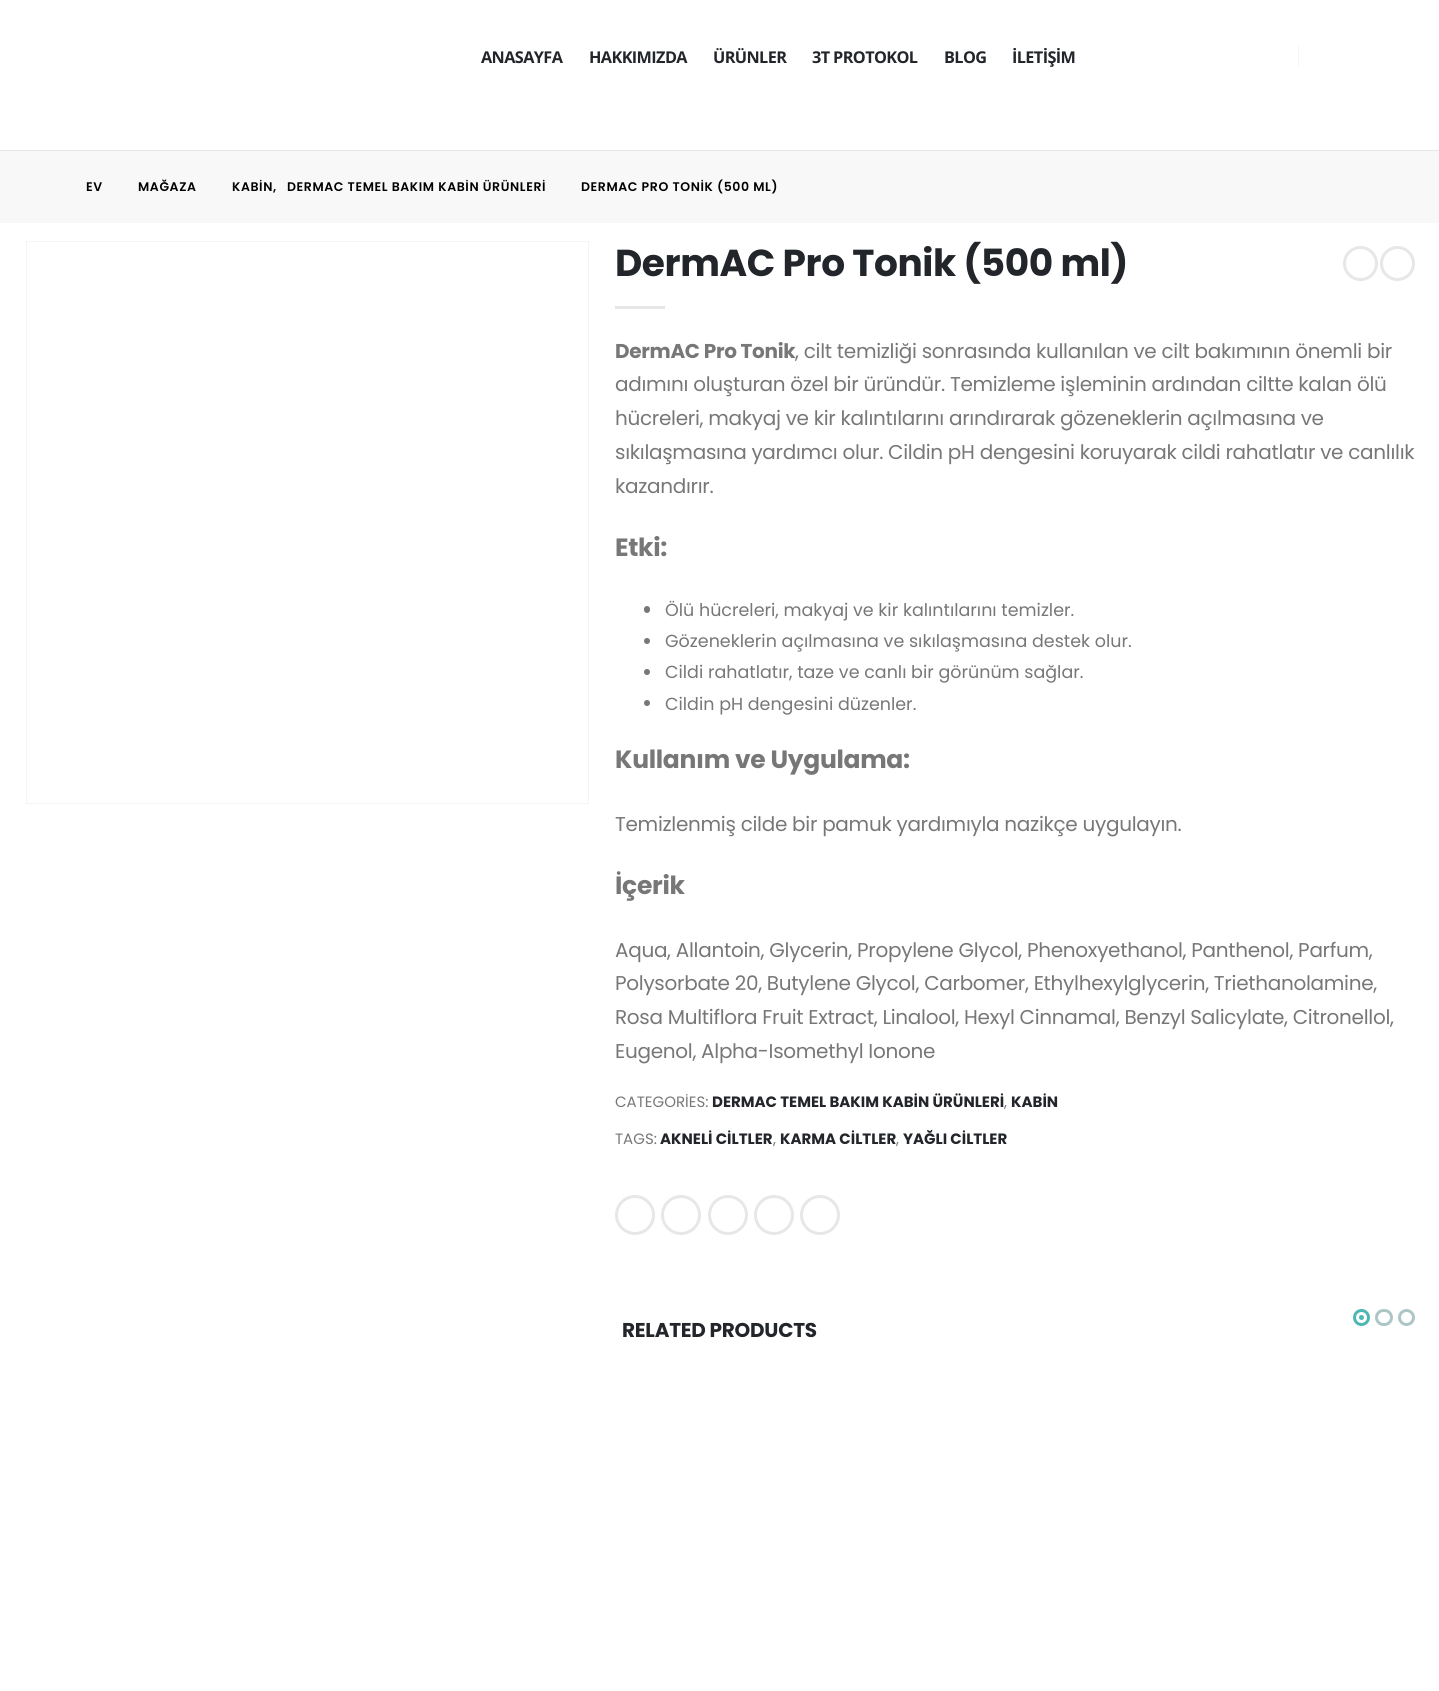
#include <cairo.h>
#include <math.h>
#include <stddef.h>


static void rgb(cairo_t *cr, int r, int g, int b)
{
	cairo_set_source_rgb(cr, r / 255.0, g / 255.0, b / 255.0);
}

static void face(cairo_t *cr, const char *family, double size, int italic, int bold)
{
	cairo_select_font_face(cr, family, italic ? CAIRO_FONT_SLANT_ITALIC : CAIRO_FONT_SLANT_NORMAL,
		bold ? CAIRO_FONT_WEIGHT_BOLD : CAIRO_FONT_WEIGHT_NORMAL);
	cairo_set_font_size(cr, size);
}

static void label(cairo_t *cr, double x, double y, const char *s)
{
	cairo_move_to(cr, x, y);
	cairo_show_text(cr, s);
}

static void tracked(cairo_t *cr, double x, double y, const char *s, double letter, double word)
{
	cairo_move_to(cr, x, y);
	while (*s) {
		char ch[5] = {0};
		int n = 0;
		do ch[n++] = *s++; while ((*s & 0xC0) == 0x80);
		cairo_show_text(cr, ch);
		cairo_rel_move_to(cr, letter + word * (*ch == ' '), 0);
	}
}

static void rect(cairo_t *cr, double x, double y, double w, double h)
{
	cairo_rectangle(cr, x, y, w, h);
	cairo_fill(cr);
}

static void rrect(cairo_t *cr, double x, double y, double w, double h, double r)
{
	cairo_new_sub_path(cr);
	cairo_arc(cr, x + w - r, y + h - r, r, 0, M_PI / 2);
	cairo_arc(cr, x + r, y + h - r, r, M_PI / 2, M_PI);
	cairo_arc(cr, x + r, y + r, r, M_PI, 1.5 * M_PI);
	cairo_arc(cr, x + w - r, y + r, r, 1.5 * M_PI, 2 * M_PI);
	cairo_close_path(cr);
}

static void draw(cairo_t *cr) {
	rgb(cr, 255, 255, 255);
	cairo_paint(cr);
	face(cr, "Open Sans", 16.25, 0, 1);
	rgb(cr, 34, 37, 41);
	tracked(cr, 481, 63, "ANASAYFA", -0.6, 0);
	tracked(cr, 589, 63, "HAKKIMIZDA", -0.6, 0);
	tracked(cr, 713, 63, "ÜRÜNLER", -0.6, 0);
	tracked(cr, 812, 63, "3T PROTOKOL", -0.6, 0);
	tracked(cr, 944, 63, "BLOG", -0.6, 0);
	tracked(cr, 1012, 63, "İLETİŞİM", -0.6, 0);
	rgb(cr, 245, 245, 245);
	rect(cr, 1298, 46, 1, 20);
	rgb(cr, 248, 248, 248);
	rect(cr, 0, 151, 1439, 72);
	rgb(cr, 231, 231, 231);
	rect(cr, 0, 150, 1439, 1);
	face(cr, "Poppins SemiBold", 12.5, 0, 0);
	rgb(cr, 0, 0, 0);
	tracked(cr, 86, 191, "EV", 0.6, 0);
	tracked(cr, 138, 191, "MAĞAZA", 0.6, 0);
	tracked(cr, 232, 191, "KABİN,", 0.6, 0);
	tracked(cr, 287, 191, "DERMAC TEMEL BAKIM KABİN ÜRÜNLERİ", 0.6, 0);
	tracked(cr, 581, 191, "DERMAC PRO TONİK (500 ML)", 0.6, 0);
	cairo_rectangle(cr, 26.5, 241.5, 562, 562);
	rgb(cr, 244, 244, 244);
	cairo_set_line_width(cr, 1);
	cairo_stroke(cr);
	face(cr, "Poppins", 37.5, 0, 1);
	rgb(cr, 34, 37, 41);
	tracked(cr, 615, 276, "DermAC Pro Tonik (500 ml)", -0.4, 0);
	cairo_new_path(cr);
	cairo_arc(cr, 1360.5, 263.5, 16, 0, 2 * M_PI);
	rgb(cr, 231, 231, 231);
	cairo_set_line_width(cr, 3);
	cairo_stroke(cr);
	cairo_arc(cr, 1397.5, 263.5, 16, 0, 2 * M_PI);
	cairo_stroke(cr);
	rect(cr, 615, 306, 50, 3);
	face(cr, "Poppins", 20, 0, 1);
	rgb(cr, 119, 119, 119);
	tracked(cr, 615, 358, "DermAC Pro Tonik", -0.3, 0);
	face(cr, "Poppins", 20, 0, 0);
	tracked(cr, 795, 358, ", cilt temizliği sonrasında kullanılan ve cilt bakımının önemli bir", -0.3, 0);
	tracked(cr, 615, 391, "adımını oluşturan özel bir üründür. Temizleme işleminin ardından ciltte kalan ölü", -0.3, 0);
	tracked(cr, 615, 425, "hücreleri, makyaj ve kir kalıntılarını arındırarak gözeneklerin açılmasına ve", -0.3, 0);
	tracked(cr, 615, 459, "sıkılaşmasına yardımcı olur. Cildin pH dengesini koruyarak cildi rahatlatır ve canlılık", -0.3, 0);
	tracked(cr, 615, 493, "kazandırır.", -0.3, 0);
	face(cr, "Poppins", 25, 0, 1);
	tracked(cr, 615, 556, "Etki:", -0.3, 0);
	rrect(cr, 644, 606, 6, 7, 3);
	cairo_fill(cr);
	face(cr, "Poppins", 17.5, 0, 0);
	label(cr, 665, 616, "Ölü hücreleri, makyaj ve kir kalıntılarını temizler.");
	cairo_new_path(cr);
	cairo_arc(cr, 647, 641, 3, 0, 2 * M_PI);
	cairo_fill(cr);
	label(cr, 665, 647, "Gözeneklerin açılmasına ve sıkılaşmasına destek olur.");
	cairo_new_path(cr);
	cairo_arc(cr, 647, 672, 3, 0, 2 * M_PI);
	cairo_fill(cr);
	label(cr, 665, 678, "Cildi rahatlatır, taze ve canlı bir görünüm sağlar.");
	cairo_new_path(cr);
	cairo_arc(cr, 647, 703, 3, 0, 2 * M_PI);
	cairo_fill(cr);
	label(cr, 665, 710, "Cildin pH dengesini düzenler.");
	face(cr, "Poppins", 25, 0, 1);
	tracked(cr, 615, 768, "Kullanım ve Uygulama:", -0.3, 0);
	face(cr, "Poppins", 20, 0, 0);
	tracked(cr, 615, 831, "Temizlenmiş cilde bir pamuk yardımıyla nazikçe uygulayın.", -0.3, 0);
	face(cr, "Poppins", 25, 0, 1);
	tracked(cr, 615, 894, "İçerik", -0.3, 0);
	face(cr, "Poppins", 20, 0, 0);
	tracked(cr, 615, 957, "Aqua, Allantoin, Glycerin, Propylene Glycol, Phenoxyethanol, Panthenol, Parfum,", -0.3, 0);
	tracked(cr, 615, 990, "Polysorbate 20, Butylene Glycol, Carbomer, Ethylhexylglycerin, Triethanolamine,", -0.3, 0);
	tracked(cr, 615, 1024, "Rosa Multiflora Fruit Extract, Linalool, Hexyl Cinnamal, Benzyl Salicylate, Citronellol,", -0.3, 0);
	tracked(cr, 615, 1058, "Eugenol, Alpha-Isomethyl Ionone", -0.3, 0);
	face(cr, "Poppins", 15, 0, 0);
	label(cr, 615, 1107, "CATEGORİES:");
	face(cr, "Poppins", 15, 0, 1);
	rgb(cr, 34, 37, 41);
	label(cr, 712, 1107, "DERMAC TEMEL BAKIM KABİN ÜRÜNLERİ");
	face(cr, "Poppins", 15, 0, 0);
	rgb(cr, 119, 119, 119);
	label(cr, 1004, 1107, ",");
	face(cr, "Poppins", 15, 0, 1);
	rgb(cr, 34, 37, 41);
	label(cr, 1011, 1107, "KABİN");
	face(cr, "Poppins", 15, 0, 0);
	rgb(cr, 119, 119, 119);
	label(cr, 615, 1144, "TAGS:");
	face(cr, "Poppins", 15, 0, 1);
	rgb(cr, 34, 37, 41);
	label(cr, 660, 1144, "AKNELİ CİLTLER");
	face(cr, "Poppins", 15, 0, 0);
	rgb(cr, 119, 119, 119);
	label(cr, 773, 1144, ",");
	face(cr, "Poppins", 15, 0, 1);
	rgb(cr, 34, 37, 41);
	label(cr, 780, 1144, "KARMA CİLTLER");
	face(cr, "Poppins", 15, 0, 0);
	rgb(cr, 119, 119, 119);
	label(cr, 896, 1144, ",");
	face(cr, "Poppins", 15, 0, 1);
	rgb(cr, 34, 37, 41);
	label(cr, 903, 1144, "YAĞLI CİLTLER");
	cairo_new_path(cr);
	cairo_arc(cr, 635, 1215, 18.5, 0, 2 * M_PI);
	rgb(cr, 231, 231, 231);
	cairo_stroke(cr);
	cairo_arc(cr, 681, 1215, 18.5, 0, 2 * M_PI);
	cairo_stroke(cr);
	cairo_arc(cr, 728, 1215, 18.5, 0, 2 * M_PI);
	cairo_stroke(cr);
	cairo_arc(cr, 774, 1215, 18.5, 0, 2 * M_PI);
	cairo_stroke(cr);
	cairo_arc(cr, 820, 1215, 18.5, 0, 2 * M_PI);
	cairo_stroke(cr);
	cairo_arc(cr, 1361.5, 1317.5, 7, 0, 2 * M_PI);
	rgb(cr, 77, 183, 179);
	cairo_stroke(cr);
	cairo_arc(cr, 1361.5, 1317.5, 2.5, 0, 2 * M_PI);
	cairo_fill(cr);
	rrect(cr, 1376.5, 1310.5, 15, 14, 7);
	rgb(cr, 171, 198, 197);
	cairo_stroke(cr);
	cairo_arc(cr, 1406.5, 1317.5, 7, 0, 2 * M_PI);
	cairo_stroke(cr);
	face(cr, "Poppins", 20, 0, 1);
	rgb(cr, 34, 37, 41);
	tracked(cr, 622, 1337, "RELATED PRODUCTS", -0.25, 0);
}

int main(void) {
	cairo_surface_t *surface = cairo_image_surface_create(CAIRO_FORMAT_RGB24, 1439, 1691);
	cairo_t *cr = cairo_create(surface);
	cairo_font_options_t *options = cairo_font_options_create();
	cairo_font_options_set_hint_metrics(options, CAIRO_HINT_METRICS_OFF);
	cairo_font_options_set_hint_style(options, CAIRO_HINT_STYLE_NONE);
	cairo_set_font_options(cr, options);
	cairo_set_miter_limit(cr, 4);
	draw(cr);
	cairo_surface_write_to_png(surface, "render.png");
	cairo_font_options_destroy(options);
	cairo_destroy(cr);
	cairo_surface_destroy(surface);
	return 0;
}
